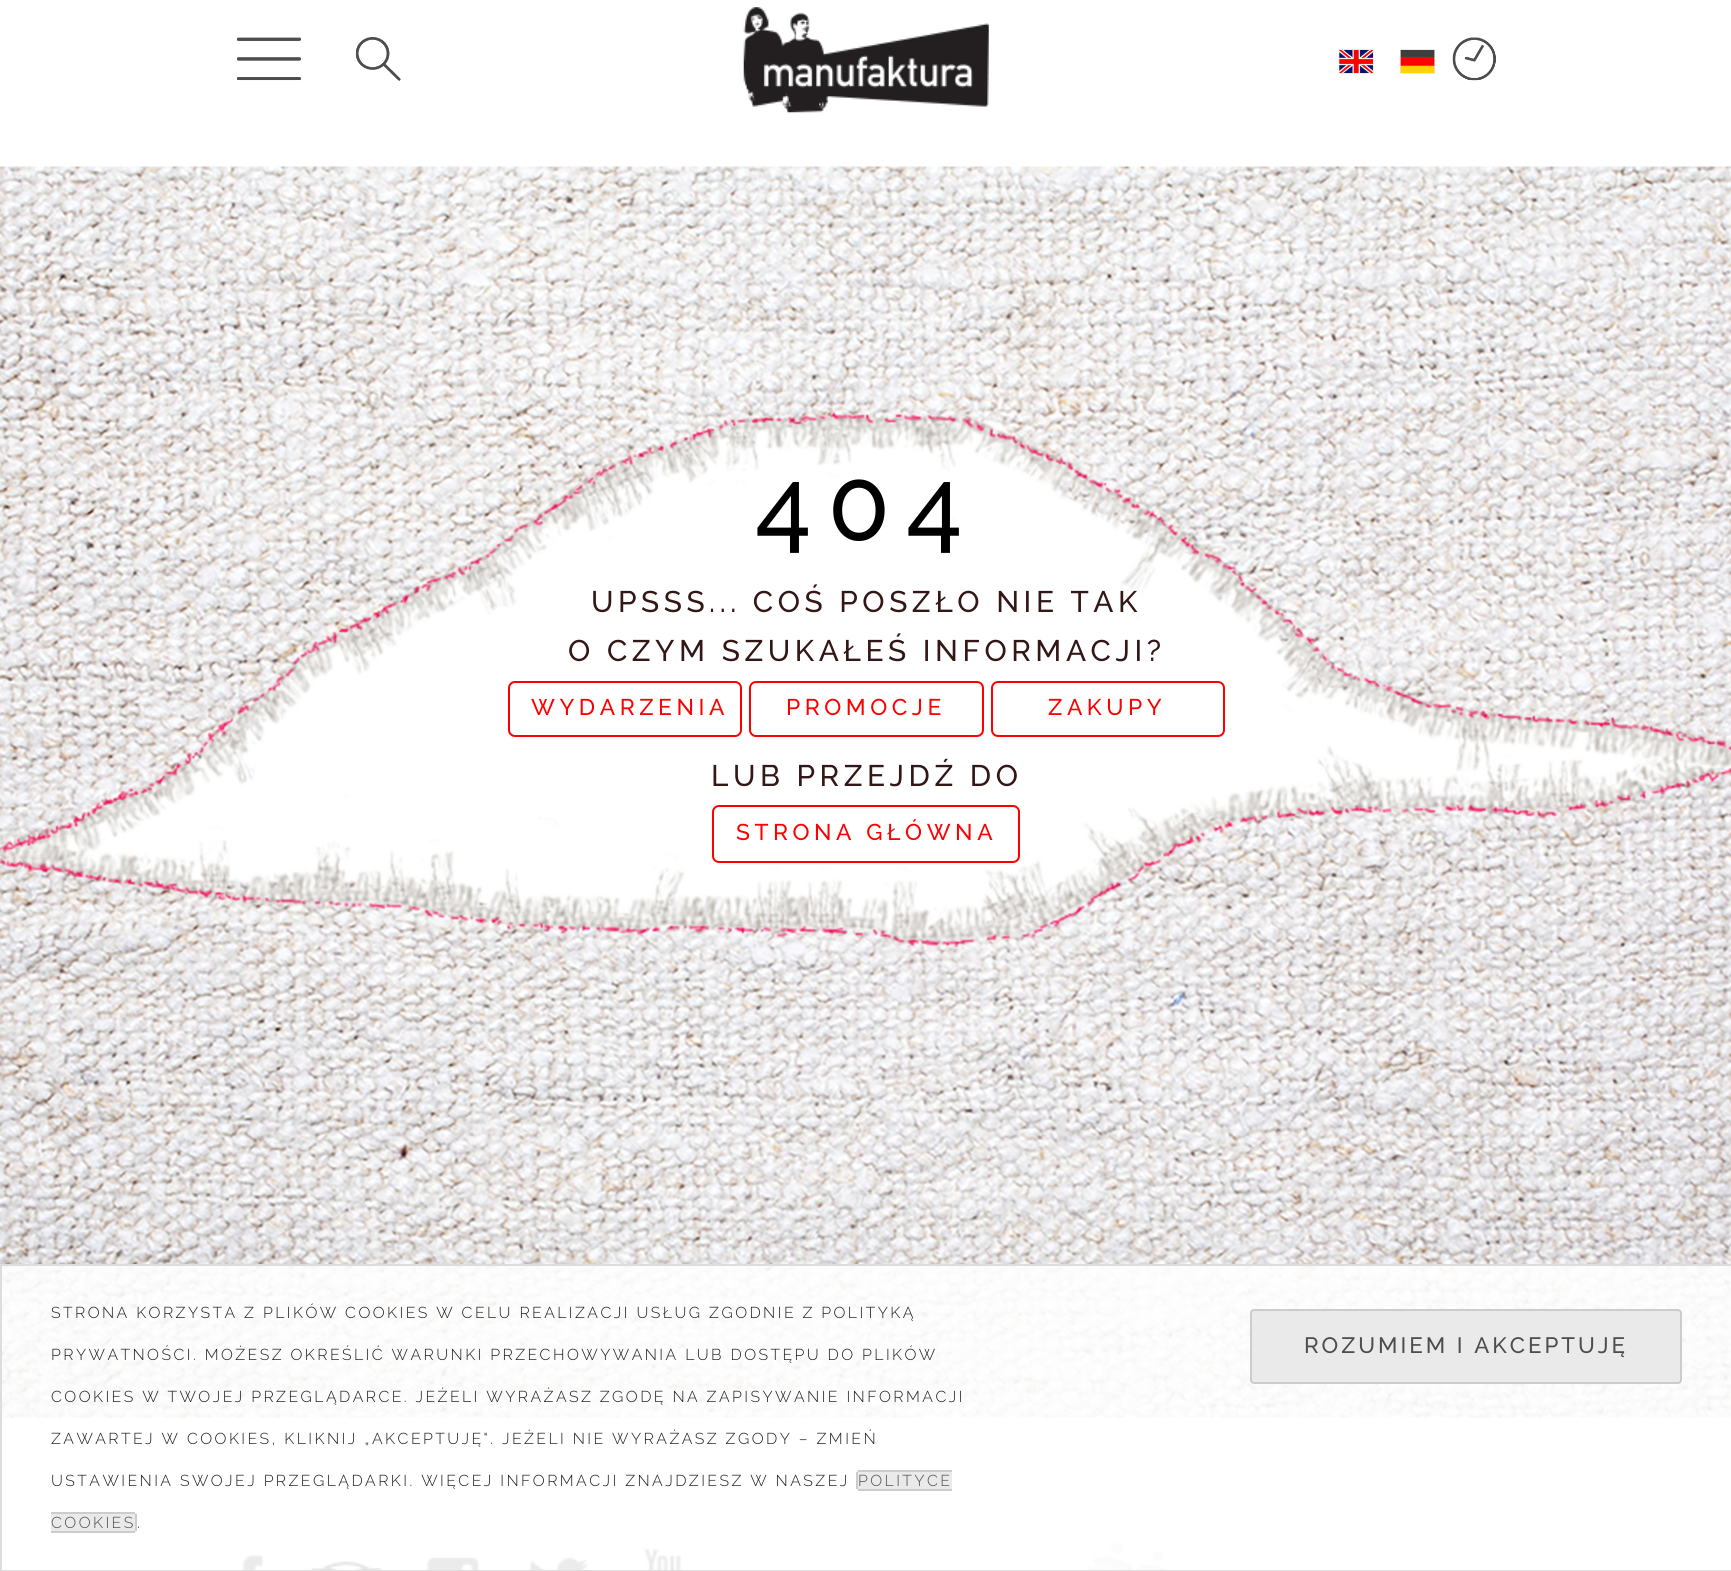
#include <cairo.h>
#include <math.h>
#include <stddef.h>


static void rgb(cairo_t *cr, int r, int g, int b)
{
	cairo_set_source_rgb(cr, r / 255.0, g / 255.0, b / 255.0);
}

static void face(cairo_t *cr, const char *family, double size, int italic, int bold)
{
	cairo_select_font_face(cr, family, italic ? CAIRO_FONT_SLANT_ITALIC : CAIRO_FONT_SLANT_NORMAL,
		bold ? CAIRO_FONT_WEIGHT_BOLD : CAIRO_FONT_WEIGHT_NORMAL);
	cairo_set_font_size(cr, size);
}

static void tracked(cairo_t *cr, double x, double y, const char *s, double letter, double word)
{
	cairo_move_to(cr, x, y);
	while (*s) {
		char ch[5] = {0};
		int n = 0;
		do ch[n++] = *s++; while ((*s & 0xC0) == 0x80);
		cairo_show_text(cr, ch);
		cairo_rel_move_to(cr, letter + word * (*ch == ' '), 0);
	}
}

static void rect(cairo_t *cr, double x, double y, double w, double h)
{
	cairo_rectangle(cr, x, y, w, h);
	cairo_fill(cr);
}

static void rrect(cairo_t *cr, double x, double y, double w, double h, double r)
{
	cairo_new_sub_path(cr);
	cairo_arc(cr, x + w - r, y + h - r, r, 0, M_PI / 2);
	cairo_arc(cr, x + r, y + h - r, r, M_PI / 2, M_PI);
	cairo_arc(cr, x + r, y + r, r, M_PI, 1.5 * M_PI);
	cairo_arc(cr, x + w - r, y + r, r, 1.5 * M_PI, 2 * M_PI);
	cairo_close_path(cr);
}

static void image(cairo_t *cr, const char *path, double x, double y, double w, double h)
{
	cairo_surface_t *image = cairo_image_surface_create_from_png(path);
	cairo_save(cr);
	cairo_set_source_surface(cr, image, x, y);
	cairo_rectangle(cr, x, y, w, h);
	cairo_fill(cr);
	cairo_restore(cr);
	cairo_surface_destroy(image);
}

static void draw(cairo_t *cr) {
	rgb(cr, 255, 255, 255);
	cairo_paint(cr);
	image(cr, "image0.png", 237, 37, 64, 44);
	image(cr, "image1.png", 356, 37, 45, 44);
	image(cr, "image2.png", 743, 7, 246, 106);
	image(cr, "image3.png", 1338, 49, 36, 25);
	image(cr, "image4.png", 1400, 49, 35, 25);
	image(cr, "image5.png", 1452, 37, 44, 44);
	image(cr, "image6.png", 0, 166, 1731, 1252);
	face(cr, "Raleway Medium", 101.5, 0, 0);
	rgb(cr, 0, 0, 0);
	tracked(cr, 755, 540, "404", 16, 0);
	face(cr, "Raleway Medium", 29.75, 0, 0);
	rgb(cr, 51, 22, 22);
	tracked(cr, 591, 612, "UPSSS... COŚ POSZŁO NIE TAK", 4.55, 0);
	tracked(cr, 568, 661, "O CZYM SZUKAŁEŚ INFORMACJI?", 4.55, 0);
	rrect(cr, 509, 682, 232, 54, 6);
	rgb(cr, 253, 1, 1);
	cairo_stroke(cr);
	face(cr, "Raleway Medium", 22.75, 0, 0);
	tracked(cr, 531, 715, "WYDARZENIA", 4.55, 0);
	rrect(cr, 750, 682, 233, 54, 6);
	cairo_stroke(cr);
	tracked(cr, 786, 715, "PROMOCJE", 4.55, 0);
	rrect(cr, 992, 682, 232, 54, 6);
	cairo_stroke(cr);
	tracked(cr, 1048, 715, "ZAKUPY", 4.55, 0);
	face(cr, "Raleway Medium", 29.75, 0, 0);
	rgb(cr, 51, 22, 22);
	tracked(cr, 711, 786, "LUB PRZEJDŹ DO", 4.55, 0);
	rgb(cr, 255, 255, 255);
	rrect(cr, 713, 806, 306, 56, 6);
	cairo_fill_preserve(cr);
	rgb(cr, 253, 1, 1);
	cairo_stroke(cr);
	face(cr, "Raleway Medium", 22.75, 0, 0);
	tracked(cr, 736, 840, "STRONA GŁÓWNA", 4.55, 0);
	image(cr, "image7.png", 2, 1417, 1729, 153);
	image(cr, "image8.png", 242, 1554, 21, 16);
	image(cr, "image9.png", 311, 1561, 71, 9);
	image(cr, "image10.png", 427, 1557, 53, 13);
	image(cr, "image11.png", 529, 1557, 59, 13);
	image(cr, "image12.png", 643, 1549, 39, 21);
	cairo_set_source_rgba(cr, 1, 1, 1, 0.9);
	cairo_rectangle(cr, 1, 1265, 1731, 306);
	cairo_fill_preserve(cr);
	rgb(cr, 221, 221, 221);
	cairo_stroke(cr);
	face(cr, "Raleway Light", 15.75, 0, 0);
	rgb(cr, 31, 31, 31);
	tracked(cr, 51, 1318, "STRONA KORZYSTA Z PLIKÓW COOKIES W CELU REALIZACJI USŁUG ZGODNIE Z POLITYKĄ", 2.45, 0);
	tracked(cr, 51, 1360, "PRYWATNOŚCI. MOŻESZ OKREŚLIĆ WARUNKI PRZECHOWYWANIA LUB DOSTĘPU DO PLIKÓW", 2.45, 0);
	tracked(cr, 51, 1402, "COOKIES W TWOJEJ PRZEGLĄDARCE. JEŻELI WYRAŻASZ ZGODĘ NA ZAPISYWANIE INFORMACJI", 2.45, 0);
	tracked(cr, 51, 1444, "ZAWARTEJ W COOKIES, KLIKNIJ „AKCEPTUJĘ\". JEŻELI NIE WYRAŻASZ ZGODY – ZMIEŃ", 2.45, 0);
	tracked(cr, 51, 1486, "USTAWIENIA SWOJEJ PRZEGLĄDARKI. WIĘCEJ INFORMACJI ZNAJDZIESZ W NASZEJ", 2.45, 0);
	rgb(cr, 234, 234, 234);
	cairo_new_path(cr);
	cairo_move_to(cr, 860, 1470);
	cairo_line_to(cr, 952, 1470);
	cairo_line_to(cr, 952, 1491);
	cairo_line_to(cr, 860, 1491);
	cairo_curve_to(cr, 858, 1491, 856, 1489, 856, 1487);
	cairo_line_to(cr, 856, 1474);
	cairo_curve_to(cr, 856, 1472, 858, 1470, 860, 1470);
	cairo_close_path(cr);
	cairo_fill(cr);
	rgb(cr, 77, 77, 77);
	tracked(cr, 858, 1486, "POLITYCE", 2.45, 0);
	rgb(cr, 204, 204, 204);
	rect(cr, 858, 1470, 94, 2);
	rect(cr, 858, 1489, 94, 2);
	rect(cr, 856, 1472, 2, 17);
	rgb(cr, 234, 234, 234);
	cairo_new_path(cr);
	cairo_move_to(cr, 51, 1512);
	cairo_line_to(cr, 133, 1512);
	cairo_curve_to(cr, 135, 1512, 137, 1514, 137, 1516);
	cairo_line_to(cr, 137, 1529);
	cairo_curve_to(cr, 137, 1531, 135, 1533, 133, 1533);
	cairo_line_to(cr, 51, 1533);
	cairo_close_path(cr);
	cairo_fill(cr);
	rgb(cr, 77, 77, 77);
	tracked(cr, 51, 1528, "COOKIES", 2.45, 0);
	rgb(cr, 204, 204, 204);
	rect(cr, 51, 1512, 84, 2);
	rect(cr, 135, 1514, 2, 17);
	rect(cr, 51, 1531, 84, 2);
	rgb(cr, 31, 31, 31);
	tracked(cr, 137, 1528, ".", 2.45, 0);
	rgb(cr, 234, 234, 234);
	rrect(cr, 1251, 1310, 430, 73, 3);
	cairo_fill_preserve(cr);
	rgb(cr, 204, 204, 204);
	cairo_stroke(cr);
	face(cr, "Raleway Medium", 22.25, 0, 0);
	rgb(cr, 77, 77, 77);
	tracked(cr, 1304, 1353, "ROZUMIEM I AKCEPTUJĘ", 3, 0);
}

int main(void) {
	cairo_surface_t *surface = cairo_image_surface_create(CAIRO_FORMAT_RGB24, 1731, 1571);
	cairo_t *cr = cairo_create(surface);
	cairo_font_options_t *options = cairo_font_options_create();
	cairo_font_options_set_hint_metrics(options, CAIRO_HINT_METRICS_OFF);
	cairo_font_options_set_hint_style(options, CAIRO_HINT_STYLE_NONE);
	cairo_set_font_options(cr, options);
	cairo_set_miter_limit(cr, 4);
	draw(cr);
	cairo_surface_write_to_png(surface, "render.png");
	cairo_font_options_destroy(options);
	cairo_destroy(cr);
	cairo_surface_destroy(surface);
	return 0;
}
